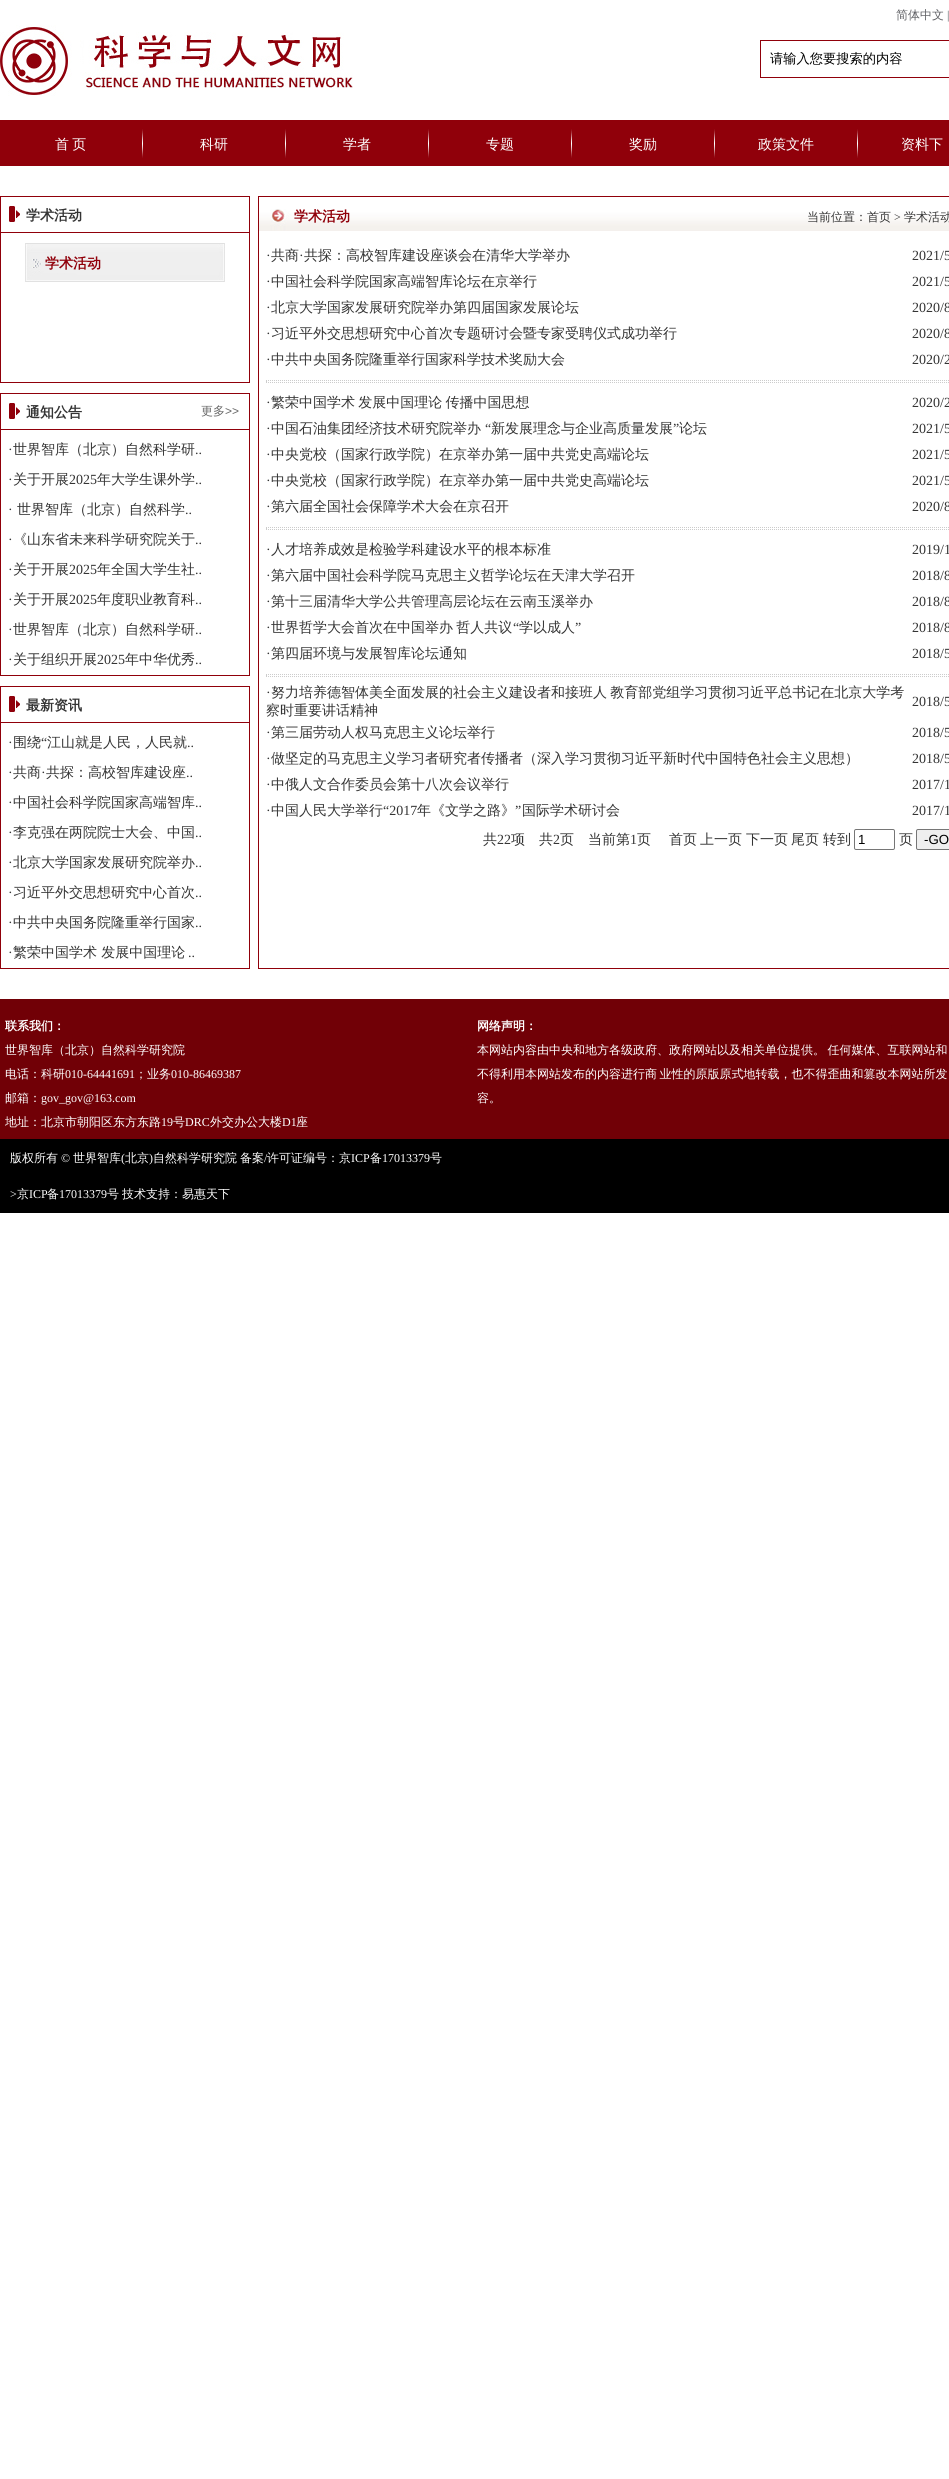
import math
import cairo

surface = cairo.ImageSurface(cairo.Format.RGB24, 949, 2479)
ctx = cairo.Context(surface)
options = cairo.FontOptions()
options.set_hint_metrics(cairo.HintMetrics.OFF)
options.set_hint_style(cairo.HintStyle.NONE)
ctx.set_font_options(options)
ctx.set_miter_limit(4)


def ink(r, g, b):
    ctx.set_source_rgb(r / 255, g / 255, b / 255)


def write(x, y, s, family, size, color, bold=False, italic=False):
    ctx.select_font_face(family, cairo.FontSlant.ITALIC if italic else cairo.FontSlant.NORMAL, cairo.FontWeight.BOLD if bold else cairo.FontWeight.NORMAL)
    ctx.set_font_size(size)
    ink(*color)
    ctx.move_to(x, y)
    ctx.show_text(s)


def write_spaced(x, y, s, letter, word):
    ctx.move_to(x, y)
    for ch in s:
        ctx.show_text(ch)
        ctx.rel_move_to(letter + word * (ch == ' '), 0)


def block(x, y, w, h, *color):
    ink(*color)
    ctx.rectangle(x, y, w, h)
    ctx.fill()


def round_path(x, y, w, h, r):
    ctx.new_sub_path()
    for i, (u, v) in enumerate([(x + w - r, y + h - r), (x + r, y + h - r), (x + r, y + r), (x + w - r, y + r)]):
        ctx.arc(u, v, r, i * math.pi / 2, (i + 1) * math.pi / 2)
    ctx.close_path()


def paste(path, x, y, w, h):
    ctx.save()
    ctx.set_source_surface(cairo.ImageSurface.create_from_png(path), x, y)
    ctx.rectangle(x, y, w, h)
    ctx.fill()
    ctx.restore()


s1 = dict(family="WenQuanYi Zen Hei Medium", size=12, color=(96, 97, 101))
s2 = dict(family="Liberation Serif", size=12, color=(96, 97, 101))
s3 = dict(family="WenQuanYi Zen Hei Medium", size=13.25, color=(0, 0, 0))
s4 = dict(family="WenQuanYi Zen Hei Medium", size=14, color=(255, 255, 255))
s5 = dict(family="WenQuanYi Zen Hei", size=14, color=(52, 52, 52), bold=True)
s6 = dict(family="WenQuanYi Zen Hei", size=14, color=(144, 0, 10), bold=True)
s7 = dict(family="WenQuanYi Zen Hei Medium", size=12, color=(103, 103, 103))
s8 = dict(family="Liberation Sans", size=12, color=(103, 103, 103))
s9 = dict(family="Liberation Serif", size=14, color=(52, 52, 52))
s10 = dict(family="WenQuanYi Zen Hei Medium", size=14, color=(52, 52, 52))
s11 = dict(family="WenQuanYi Zen Hei Medium", size=12, color=(52, 52, 52))
s12 = dict(family="Liberation Serif", size=12, color=(52, 52, 52))
s13 = dict(family="Liberation Sans", size=13.25, color=(0, 0, 0))
s14 = dict(family="WenQuanYi Zen Hei", size=12, color=(255, 255, 255), bold=True)
s15 = dict(family="WenQuanYi Zen Hei Medium", size=12, color=(255, 255, 255))
s16 = dict(family="Liberation Serif", size=12, color=(255, 255, 255))

ink(255, 255, 255)
ctx.paint()
write(896, 19, "简体中文", **s1)
write(947, 19, "|", **s2)
paste("pic1.png", 0, 25, 353, 71)
ctx.rectangle(760.5, 40.5, 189, 37)
ink(144, 0, 10)
ctx.set_line_width(1)
ctx.stroke()
write(770, 63, "请输入您要搜索的内容", **s3)
block(0, 120, 949, 46, 144, 0, 10)
ctx.set_font_size(14)
ink(255, 255, 255)
write_spaced(55, 149, "首 页", 0, -1)
paste("pic2.png", 142, 129, 1, 29)
write(200, 149, "科研", **s4)
paste("pic2.png", 285, 129, 1, 29)
write(343, 149, "学者", **s4)
paste("pic2.png", 428, 129, 1, 29)
write(486, 149, "专题", **s4)
paste("pic2.png", 571, 129, 1, 29)
write(629, 149, "奖励", **s4)
paste("pic2.png", 714, 129, 1, 29)
write(758, 149, "政策文件", **s4)
paste("pic2.png", 857, 129, 1, 29)
write(901, 149, "资料下", **s4)
ctx.rectangle(0.5, 196.5, 249, 186)
ink(144, 0, 10)
ctx.stroke()
paste("pic3.png", 9, 206, 11, 16)
write(26, 220, "学术活动", **s5)
block(1, 232, 248, 1, 144, 0, 10)
paste("pic4.png", 25, 243, 200, 39)
write(45, 268, "学术活动", **s6)
ctx.rectangle(0.5, 393.5, 249, 282)
ctx.stroke()
paste("pic3.png", 9, 403, 11, 16)
write(26, 417, "通知公告", **s5)
write(201, 415, "更多", **s7)
write(225, 415, ">>", **s8)
block(1, 429, 248, 1, 144, 0, 10)
write(8, 454, "·", **s9)
write(13, 454, "世界智库（北京）自然科学研", **s10)
write(195, 454, "..", **s9)
write(8, 484, "·", **s9)
write(13, 484, "关于开展", **s10)
write(69, 484, "2025", **s9)
write(97, 484, "年大学生课外学", **s10)
write(195, 484, "..", **s9)
write(8, 514, "·", **s9)
write(17, 514, "世界智库（北京）自然科学", **s10)
write(185, 514, "..", **s9)
write(8, 544, "·", **s9)
write(13, 544, "《山东省未来科学研究院关于", **s10)
write(195, 544, "..", **s9)
write(8, 574, "·", **s9)
write(13, 574, "关于开展", **s10)
write(69, 574, "2025", **s9)
write(97, 574, "年全国大学生社", **s10)
write(195, 574, "..", **s9)
write(8, 604, "·", **s9)
write(13, 604, "关于开展", **s10)
write(69, 604, "2025", **s9)
write(97, 604, "年度职业教育科", **s10)
write(195, 604, "..", **s9)
write(8, 634, "·", **s9)
write(13, 634, "世界智库（北京）自然科学研", **s10)
write(195, 634, "..", **s9)
write(8, 664, "·", **s9)
write(13, 664, "关于组织开展", **s10)
write(97, 664, "2025", **s9)
write(125, 664, "年中华优秀", **s10)
write(195, 664, "..", **s9)
ctx.rectangle(0.5, 686.5, 249, 282)
ink(144, 0, 10)
ctx.stroke()
paste("pic3.png", 9, 696, 11, 16)
write(26, 710, "最新资讯", **s5)
block(1, 722, 248, 1, 144, 0, 10)
write(13, 747, "围绕", **s10)
write(41, 747, "“", **s9)
write(47, 747, "江山就是人民，人民就", **s10)
write(8, 747, "·", **s9)
write(187, 747, "..", **s9)
write(8, 777, "·", **s9)
write(13, 777, "共商", **s10)
write(41, 777, "·", **s9)
write(46, 777, "共探：高校智库建设座", **s10)
write(186, 777, "..", **s9)
write(8, 807, "·", **s9)
write(13, 807, "中国社会科学院国家高端智库", **s10)
write(195, 807, "..", **s9)
write(8, 837, "·", **s9)
write(13, 837, "李克强在两院院士大会、中国", **s10)
write(195, 837, "..", **s9)
write(8, 867, "·", **s9)
write(13, 867, "北京大学国家发展研究院举办", **s10)
write(195, 867, "..", **s9)
write(8, 897, "·", **s9)
write(13, 897, "习近平外交思想研究中心首次", **s10)
write(195, 897, "..", **s9)
write(8, 927, "·", **s9)
write(13, 927, "中共中央国务院隆重举行国家", **s10)
write(195, 927, "..", **s9)
write(8, 957, "·", **s9)
write(13, 957, "繁荣中国学术 发展中国理论", **s10)
write(188, 957, "..", **s9)
ctx.rectangle(258.5, 196.5, 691, 772)
ink(144, 0, 10)
ctx.stroke()
paste("pic5.png", 259, 209, 690, 22)
write(294, 221, "学术活动", **s6)
write(807, 221, "当前位置：首页", **s11)
write(894, 221, ">", **s12)
write(904, 221, "学术活动", **s11)
write(266, 260, "·", **s9)
write(271, 260, "共商", **s10)
write(299, 260, "·", **s9)
write(304, 260, "共探：高校智库建设座谈会在清华大学举办", **s10)
write(912, 260, "2021/5", **s9)
write(266, 286, "·", **s9)
write(271, 286, "中国社会科学院国家高端智库论坛在京举行", **s10)
write(912, 286, "2021/5", **s9)
write(266, 312, "·", **s9)
write(271, 312, "北京大学国家发展研究院举办第四届国家发展论坛", **s10)
write(912, 312, "2020/8", **s9)
write(266, 338, "·", **s9)
write(271, 338, "习近平外交思想研究中心首次专题研讨会暨专家受聘仪式成功举行", **s10)
write(912, 338, "2020/8", **s9)
write(266, 364, "·", **s9)
write(271, 364, "中共中央国务院隆重举行国家科学技术奖励大会", **s10)
write(912, 364, "2020/2", **s9)
ctx.new_path()
ctx.move_to(266, 380.5)
ctx.line_to(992, 380.5)
ink(204, 204, 204)
ctx.set_dash([1, 1])
ctx.stroke()
ctx.new_path()
ctx.move_to(266, 382.5)
ctx.line_to(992, 382.5)
ctx.stroke()
block(266, 380, 1, 3, 204, 204, 204)
write(266, 407, "·", **s9)
ctx.select_font_face("WenQuanYi Zen Hei Medium")
write_spaced(271, 407, "繁荣中国学术 发展中国理论 传播中国思想", 0, -1)
write(912, 407, "2020/2", **s9)
write(271, 433, "中国石油集团经济技术研究院举办", **s10)
write(485, 433, "“", **s9)
write(491, 433, "新发展理念与企业高质量发展", **s10)
write(673, 433, "”", **s9)
write(679, 433, "论坛", **s10)
write(266, 433, "·", **s9)
write(912, 433, "2021/5", **s9)
write(266, 459, "·", **s9)
write(271, 459, "中央党校（国家行政学院）在京举办第一届中共党史高端论坛", **s10)
write(912, 459, "2021/5", **s9)
write(266, 485, "·", **s9)
write(271, 485, "中央党校（国家行政学院）在京举办第一届中共党史高端论坛", **s10)
write(912, 485, "2021/5", **s9)
write(266, 511, "·", **s9)
write(271, 511, "第六届全国社会保障学术大会在京召开", **s10)
write(912, 511, "2020/8", **s9)
ctx.new_path()
ctx.move_to(266, 527.5)
ctx.line_to(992, 527.5)
ink(204, 204, 204)
ctx.stroke()
ctx.new_path()
ctx.move_to(266, 529.5)
ctx.line_to(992, 529.5)
ctx.stroke()
block(266, 527, 1, 3, 204, 204, 204)
write(266, 554, "·", **s9)
write(271, 554, "人才培养成效是检验学科建设水平的根本标准", **s10)
write(912, 554, "2019/1", **s9)
write(266, 580, "·", **s9)
write(271, 580, "第六届中国社会科学院马克思主义哲学论坛在天津大学召开", **s10)
write(912, 580, "2018/8", **s9)
write(266, 606, "·", **s9)
write(271, 606, "第十三届清华大学公共管理高层论坛在云南玉溪举办", **s10)
write(912, 606, "2018/8", **s9)
ctx.select_font_face("WenQuanYi Zen Hei Medium")
write_spaced(271, 632, "世界哲学大会首次在中国举办 哲人共议", 0, -1)
write(513, 632, "“", **s9)
write(519, 632, "学以成人", **s10)
write(575, 632, "”", **s9)
write(266, 632, "·", **s9)
write(912, 632, "2018/8", **s9)
write(266, 658, "·", **s9)
write(271, 658, "第四届环境与发展智库论坛通知", **s10)
write(912, 658, "2018/5", **s9)
ctx.new_path()
ctx.move_to(266, 674.5)
ctx.line_to(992, 674.5)
ink(204, 204, 204)
ctx.stroke()
ctx.new_path()
ctx.move_to(266, 676.5)
ctx.line_to(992, 676.5)
ctx.stroke()
block(266, 674, 1, 3, 204, 204, 204)
write(266, 697, "·", **s9)
ctx.select_font_face("WenQuanYi Zen Hei Medium")
write_spaced(271, 697, "努力培养德智体美全面发展的社会主义建设者和接班人 教育部党组学习贯彻习近平总书记在北京大学考", 0, -1)
write(266, 715, "察时重要讲话精神", **s10)
write(912, 706, "2018/5", **s9)
write(266, 737, "·", **s9)
write(271, 737, "第三届劳动人权马克思主义论坛举行", **s10)
write(912, 737, "2018/5", **s9)
write(266, 763, "·", **s9)
write(271, 763, "做坚定的马克思主义学习者研究者传播者（深入学习贯彻习近平新时代中国特色社会主义思想）", **s10)
write(912, 763, "2018/5", **s9)
write(266, 789, "·", **s9)
write(271, 789, "中俄人文合作委员会第十八次会议举行", **s10)
write(912, 789, "2017/1", **s9)
write(271, 815, "中国人民大学举行", **s10)
write(383, 815, "“2017", **s9)
write(417, 815, "年《文学之路》", **s10)
write(515, 815, "”", **s9)
write(522, 815, "国际学术研讨会", **s10)
write(266, 815, "·", **s9)
write(912, 815, "2017/1", **s9)
write(483, 844, "共", **s10)
write(497, 844, "22", **s9)
write(511, 844, "项　共", **s10)
write(553, 844, "2", **s9)
write(560, 844, "页　当前第", **s10)
write(630, 844, "1", **s9)
write(637, 844, "页", **s10)
write(669, 844, "首页", **s10)
write(700, 844, "上一页", **s10)
write(746, 844, "下一页", **s10)
write(791, 844, "尾页", **s10)
write(823, 844, "转到", **s10)
round_path(854.5, 829.5, 40, 20, 1.5)
ink(118, 118, 118)
ctx.set_dash([])
ctx.stroke()
write(858, 844, "1", **s13)
write(899, 844, "页", **s10)
ink(239, 239, 239)
round_path(916.5, 829.5, 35, 20, 1.5)
ctx.fill_preserve()
ink(118, 118, 118)
ctx.stroke()
write(924, 844, "-GO", **s13)
block(0, 999, 949, 140, 113, 0, 6)
write(5, 1030, "联系我们：", **s14)
write(5, 1054, "世界智库（北京）自然科学研究院", **s15)
write(5, 1078, "电话：科研", **s15)
write(65, 1078, "010-64441691", **s16)
write(135, 1078, "；业务", **s15)
write(171, 1078, "010-86469387", **s16)
write(5, 1102, "邮箱：", **s15)
write(41, 1102, "gov_gov@163.com", **s16)
write(5, 1126, "地址：北京市朝阳区东方东路", **s15)
write(161, 1126, "19", **s16)
write(173, 1126, "号", **s15)
write(185, 1126, "DRC", **s16)
write(210, 1126, "外交办公大楼", **s15)
write(282, 1126, "D1", **s16)
write(296, 1126, "座", **s15)
write(477, 1030, "网络声明：", **s14)
ctx.select_font_face("WenQuanYi Zen Hei Medium")
write_spaced(477, 1054, "本网站内容由中央和地方各级政府、政府网站以及相关单位提供。 任何媒体、互联网站和", 0, -1)
write_spaced(477, 1078, "不得利用本网站发布的内容进行商 业性的原版原式地转载，也不得歪曲和篡改本网站所发", 0, -1)
write(477, 1102, "容。", **s15)
block(0, 1139, 949, 74, 0, 0, 0)
write(10, 1162, "版权所有", **s15)
write(61, 1162, "©", **s16)
write(73, 1162, "世界智库", **s15)
write(121, 1162, "(", **s16)
write(125, 1162, "北京", **s15)
write(149, 1162, ")", **s16)
write(153, 1162, "自然科学研究院", **s15)
write(240, 1162, "备案", **s15)
write(264, 1162, "/", **s16)
write(267, 1162, "许可证编号：京", **s15)
write(351, 1162, "ICP", **s16)
write(370, 1162, "备", **s15)
write(382, 1162, "17013379", **s16)
write(430, 1162, "号", **s15)
write(10, 1198, ">", **s16)
write(17, 1198, "京", **s15)
write(29, 1198, "ICP", **s16)
write(47, 1198, "备", **s15)
write(59, 1198, "17013379", **s16)
write(107, 1198, "号", **s15)
write(122, 1198, "技术支持：易惠天下", **s15)
surface.write_to_png("screenshot.png")
